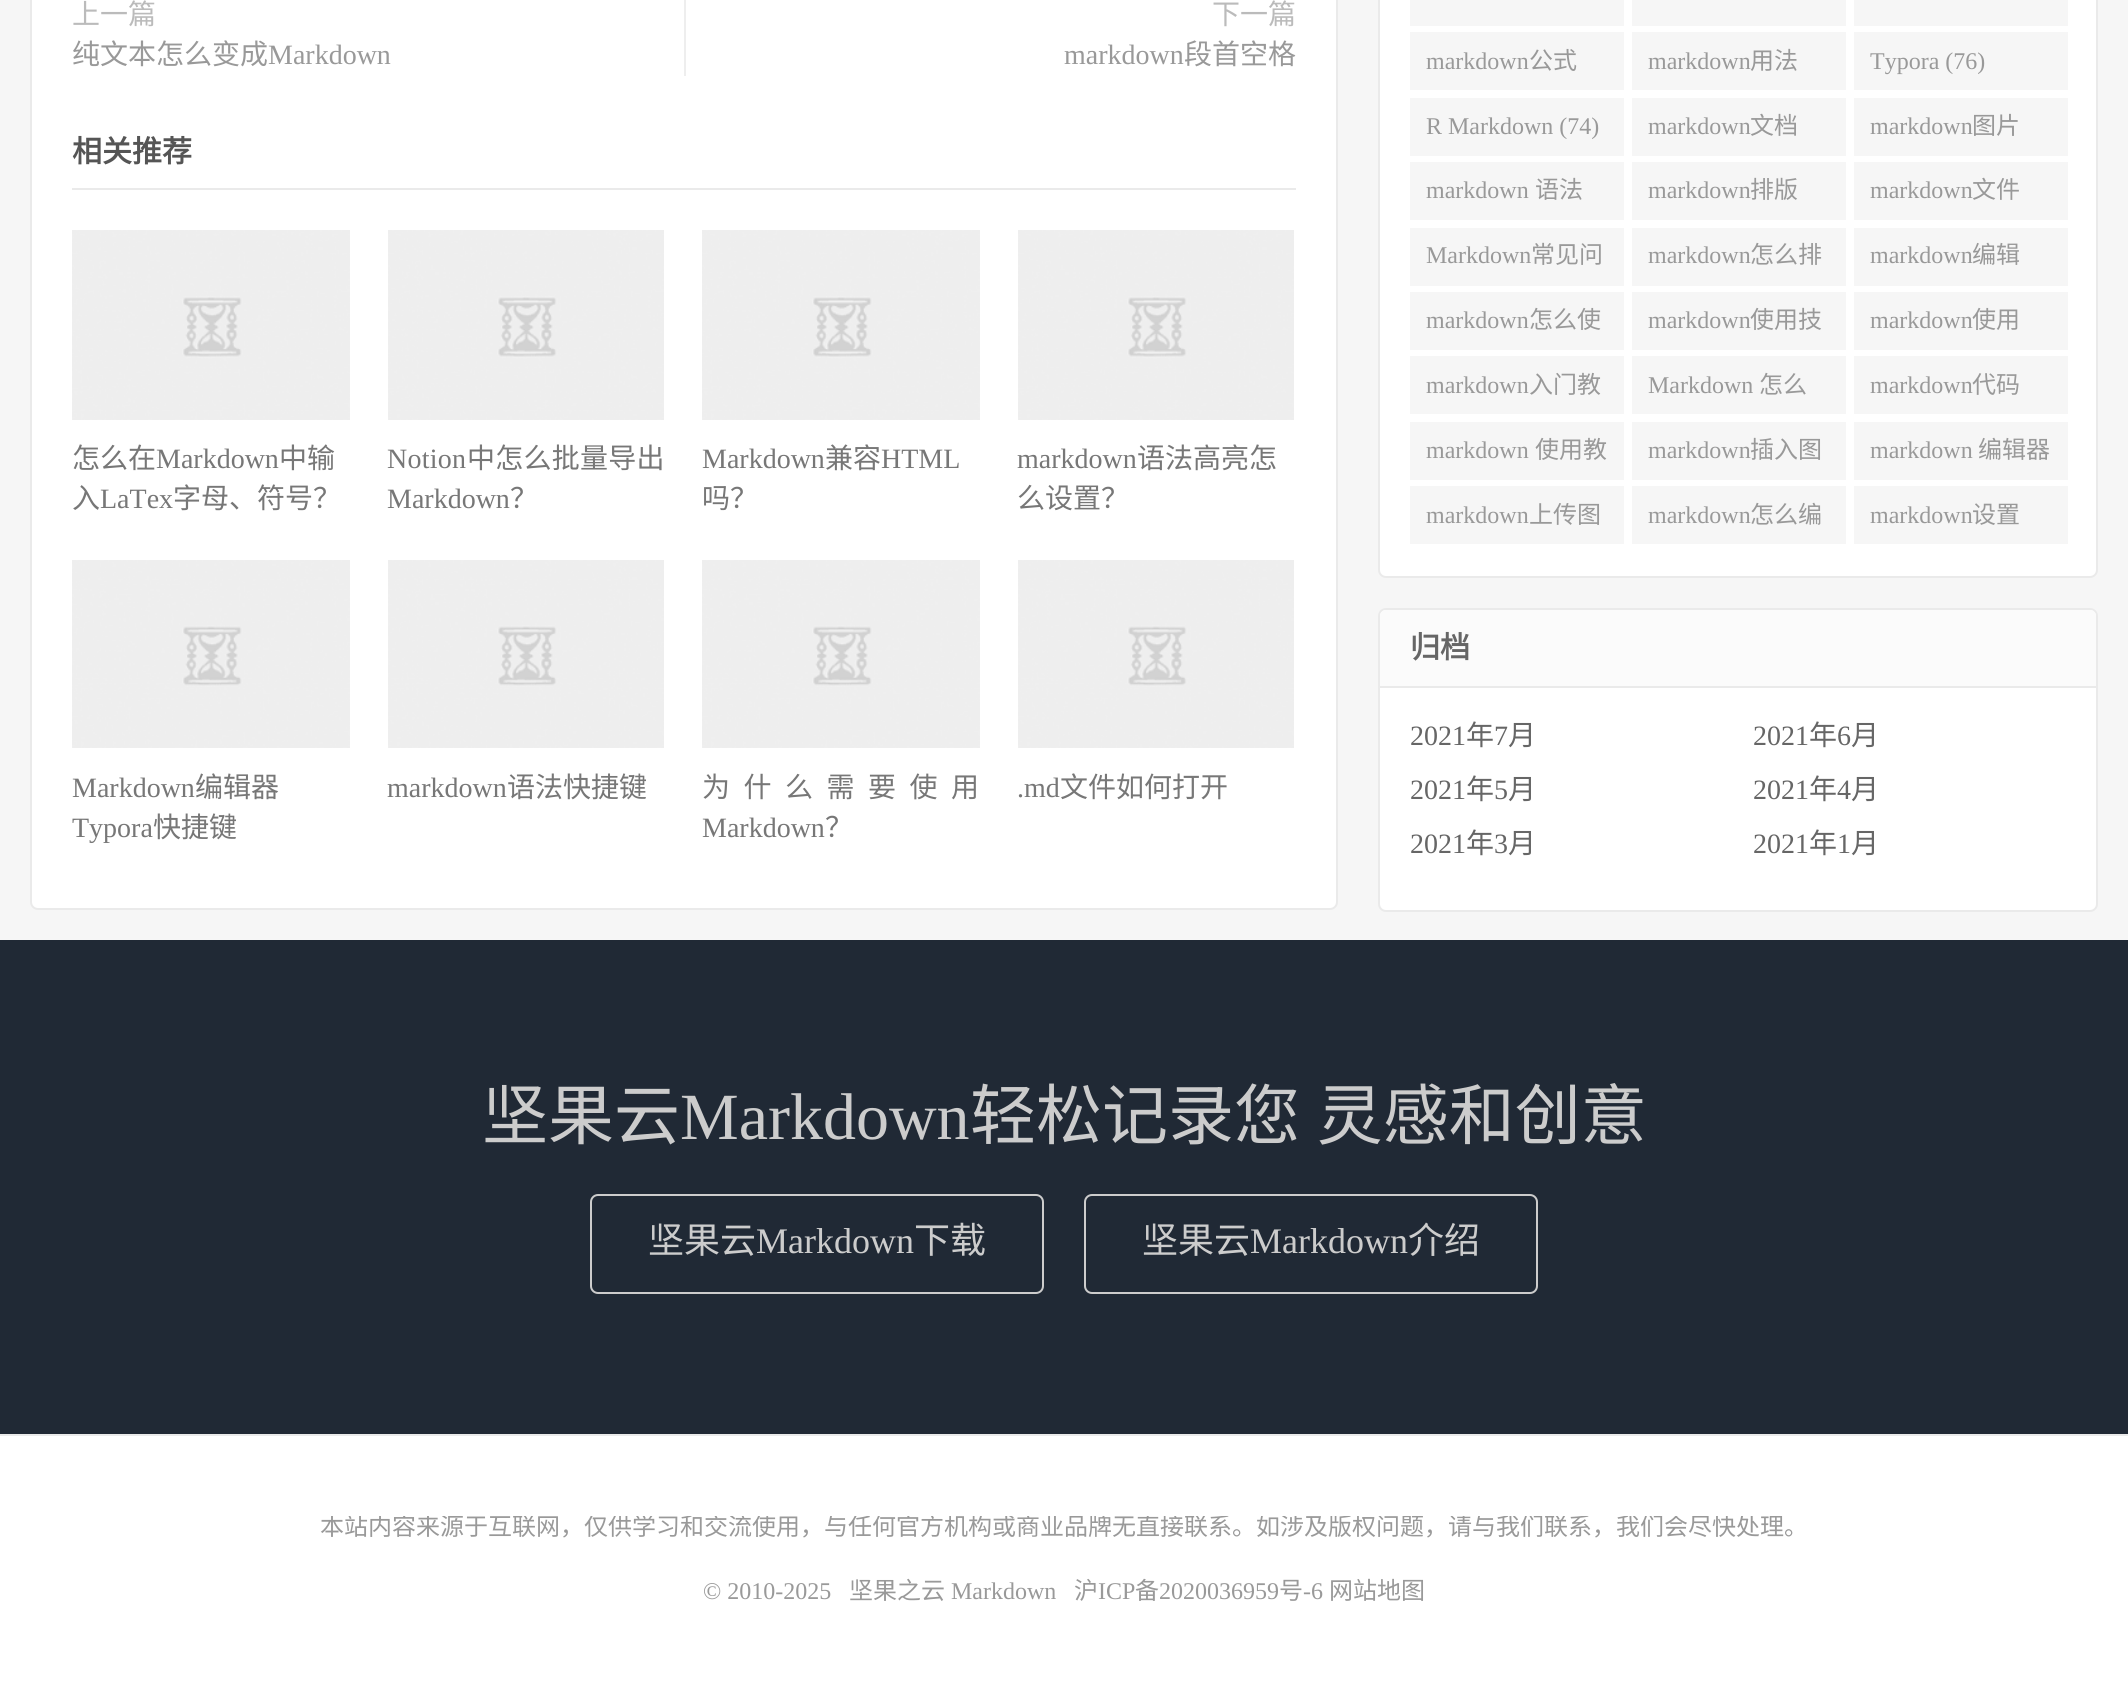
import math
import cairo

surface = cairo.ImageSurface(cairo.Format.RGB24, 2128, 1704)
ctx = cairo.Context(surface)
options = cairo.FontOptions()
options.set_hint_metrics(cairo.HintMetrics.OFF)
options.set_hint_style(cairo.HintStyle.NONE)
ctx.set_font_options(options)
ctx.set_miter_limit(4)


def ink(r, g, b):
    ctx.set_source_rgb(r / 255, g / 255, b / 255)


def write(x, y, s, family, size, color, bold=False, italic=False):
    ctx.select_font_face(family, cairo.FontSlant.ITALIC if italic else cairo.FontSlant.NORMAL, cairo.FontWeight.BOLD if bold else cairo.FontWeight.NORMAL)
    ctx.set_font_size(size)
    ink(*color)
    ctx.move_to(x, y)
    ctx.show_text(s)


def write_spaced(x, y, s, letter, word):
    ctx.move_to(x, y)
    for ch in s:
        ctx.show_text(ch)
        ctx.rel_move_to(letter + word * (ch == ' '), 0)


def block(x, y, w, h, *color):
    ink(*color)
    ctx.rectangle(x, y, w, h)
    ctx.fill()


def round_path(x, y, w, h, r):
    ctx.new_sub_path()
    for i, (u, v) in enumerate([(x + w - r, y + h - r), (x + r, y + h - r), (x + r, y + r), (x + w - r, y + r)]):
        ctx.arc(u, v, r, i * math.pi / 2, (i + 1) * math.pi / 2)
    ctx.close_path()


def paste(path, x, y, w, h):
    ctx.save()
    ctx.set_source_surface(cairo.ImageSurface.create_from_png(path), x, y)
    ctx.rectangle(x, y, w, h)
    ctx.fill()
    ctx.restore()


s1 = dict(family="Noto Sans CJK SC", size=28, color=(187, 187, 187))
s2 = dict(family="Noto Sans CJK SC", size=28, color=(153, 153, 153))
s3 = dict(family="Liberation Serif", size=28, color=(153, 153, 153))
s4 = dict(family="Noto Sans CJK SC", size=30, color=(85, 85, 85), bold=True)
s5 = dict(family="Noto Sans CJK SC", size=28, color=(119, 119, 119))
s6 = dict(family="Liberation Serif", size=28, color=(119, 119, 119))
s7 = dict(family="Liberation Serif", size=24, color=(153, 153, 153))
s8 = dict(family="Noto Sans CJK SC", size=24, color=(153, 153, 153))
s9 = dict(family="Noto Sans CJK SC", size=30, color=(102, 102, 102), bold=True)
s10 = dict(family="Liberation Serif", size=28, color=(102, 102, 102))
s11 = dict(family="Noto Sans CJK SC", size=28, color=(102, 102, 102))
s12 = dict(family="Noto Sans CJK SC", size=66, color=(204, 204, 204))
s13 = dict(family="Liberation Serif", size=66, color=(204, 204, 204))
s14 = dict(family="Noto Sans CJK SC", size=36, color=(204, 204, 204))
s15 = dict(family="Liberation Serif", size=36, color=(204, 204, 204))

ink(246, 246, 246)
ctx.paint()
ink(255, 255, 255)
round_path(31, -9, 1306, 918, 7)
ctx.fill_preserve()
ink(234, 234, 234)
ctx.stroke()
write(72, 24, "上一篇", **s1)
write(72, 64, "纯文本怎么变成", **s2)
write(268, 64, "Markdown", **s3)
block(684, 0, 2, 76, 238, 238, 238)
write(1212, 24, "下一篇", **s1)
write(1064, 64, "markdown", **s3)
write(1184, 64, "段首空格", **s2)
block(72, 188, 1224, 2, 234, 234, 234)
write(72, 162, "相关推荐", **s4)
paste("pic1.png", 72, 230, 278, 190)
write(72, 468, "怎么在", **s5)
write(156, 468, "Markdown", **s6)
write(279, 468, "中输", **s5)
write(72, 508, "入", **s5)
write(100, 508, "LaTex", **s6)
write(173, 508, "字母、符号？", **s5)
paste("pic2.png", 388, 230, 276, 190)
ctx.select_font_face("Liberation Serif")
write_spaced(387, 468, "Notion", 0.25, 0)
ctx.select_font_face("Noto Sans CJK SC")
write_spaced(467, 468, "中怎么批量导出", 0.25, 0)
write(387, 508, "Markdown", **s6)
write(510, 508, "？", **s5)
paste("pic1.png", 702, 230, 278, 190)
write(702, 468, "Markdown", **s6)
write(825, 468, "兼容", **s5)
write(881, 468, "HTML", **s6)
write(702, 508, "吗？", **s5)
paste("pic3.png", 1018, 230, 276, 190)
write(1017, 468, "markdown", **s6)
write(1137, 468, "语法高亮怎", **s5)
write(1017, 508, "么设置？", **s5)
paste("pic4.png", 72, 560, 278, 188)
write(72, 797, "Markdown", **s6)
write(195, 797, "编辑器", **s5)
write(72, 837, "Typora", **s6)
write(153, 837, "快捷键", **s5)
paste("pic5.png", 388, 560, 276, 188)
write(387, 797, "markdown", **s6)
write(507, 797, "语法快捷键", **s5)
paste("pic4.png", 702, 560, 278, 188)
write_spaced(702, 797, "为什么需要使用", 13.5, 0)
write(702, 837, "Markdown", **s6)
write(825, 837, "？", **s5)
paste("pic6.png", 1018, 560, 276, 188)
write(1017, 797, ".md", **s6)
write(1060, 797, "文件如何打开", **s5)
ink(255, 255, 255)
round_path(1379, -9, 718, 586, 7)
ctx.fill_preserve()
ink(234, 234, 234)
ctx.stroke()
block(1410, 0, 214, 26, 246, 246, 246)
block(1632, 0, 214, 26, 246, 246, 246)
block(1854, 0, 214, 26, 246, 246, 246)
block(1410, 32, 214, 58, 246, 246, 246)
write(1426, 69, "markdown", **s7)
write(1529, 69, "公式", **s8)
block(1632, 32, 214, 58, 246, 246, 246)
write(1648, 69, "markdown", **s7)
write(1750, 69, "用法", **s8)
block(1854, 32, 214, 58, 246, 246, 246)
write(1870, 69, "Typora (76)", **s7)
block(1410, 98, 214, 58, 246, 246, 246)
write(1426, 134, "R Markdown (74)", **s7)
block(1632, 98, 214, 58, 246, 246, 246)
write(1648, 134, "markdown", **s7)
write(1750, 134, "文档", **s8)
block(1854, 98, 214, 58, 246, 246, 246)
write(1870, 134, "markdown", **s7)
write(1972, 134, "图片", **s8)
block(1410, 162, 214, 58, 246, 246, 246)
write(1426, 198, "markdown", **s7)
write(1535, 198, "语法", **s8)
block(1632, 162, 214, 58, 246, 246, 246)
write(1648, 198, "markdown", **s7)
write(1750, 198, "排版", **s8)
block(1854, 162, 214, 58, 246, 246, 246)
write(1870, 198, "markdown", **s7)
write(1972, 198, "文件", **s8)
block(1410, 228, 214, 58, 246, 246, 246)
write(1426, 263, "Markdown", **s7)
write(1531, 263, "常见问", **s8)
block(1632, 228, 214, 58, 246, 246, 246)
write(1648, 263, "markdown", **s7)
write(1750, 263, "怎么排", **s8)
block(1854, 228, 214, 58, 246, 246, 246)
write(1870, 263, "markdown", **s7)
write(1972, 263, "编辑", **s8)
block(1410, 292, 214, 58, 246, 246, 246)
write(1426, 328, "markdown", **s7)
write(1529, 328, "怎么使", **s8)
block(1632, 292, 214, 58, 246, 246, 246)
write(1648, 328, "markdown", **s7)
write(1750, 328, "使用技", **s8)
block(1854, 292, 214, 58, 246, 246, 246)
write(1870, 328, "markdown", **s7)
write(1972, 328, "使用", **s8)
block(1410, 356, 214, 58, 246, 246, 246)
write(1426, 393, "markdown", **s7)
write(1529, 393, "入门教", **s8)
block(1632, 356, 214, 58, 246, 246, 246)
write(1648, 393, "Markdown", **s7)
write(1759, 393, "怎么", **s8)
block(1854, 356, 214, 58, 246, 246, 246)
write(1870, 393, "markdown", **s7)
write(1972, 393, "代码", **s8)
block(1410, 422, 214, 58, 246, 246, 246)
write(1426, 458, "markdown", **s7)
write(1535, 458, "使用教", **s8)
block(1632, 422, 214, 58, 246, 246, 246)
write(1648, 458, "markdown", **s7)
write(1750, 458, "插入图", **s8)
block(1854, 422, 214, 58, 246, 246, 246)
write(1870, 458, "markdown", **s7)
write(1978, 458, "编辑器", **s8)
block(1410, 486, 214, 58, 246, 246, 246)
write(1426, 523, "markdown", **s7)
write(1529, 523, "上传图", **s8)
block(1632, 486, 214, 58, 246, 246, 246)
write(1648, 523, "markdown", **s7)
write(1750, 523, "怎么编", **s8)
block(1854, 486, 214, 58, 246, 246, 246)
write(1870, 523, "markdown", **s7)
write(1972, 523, "设置", **s8)
ink(255, 255, 255)
round_path(1379, 609, 718, 302, 7)
ctx.fill_preserve()
ink(234, 234, 234)
ctx.stroke()
ink(251, 251, 251)
ctx.new_path()
ctx.move_to(1386, 610)
ctx.line_to(2090, 610)
ctx.curve_to(2093.5, 610, 2096, 612.5, 2096, 616)
ctx.line_to(2096, 688)
ctx.line_to(1380, 688)
ctx.line_to(1380, 616)
ctx.curve_to(1380, 612.5, 1382.5, 610, 1386, 610)
ctx.close_path()
ctx.fill()
block(1380, 686, 716, 2, 234, 234, 234)
write(1410, 658, "归档", **s9)
write(1410, 745, "2021", **s10)
write(1466, 745, "年", **s11)
write(1494, 745, "7", **s10)
write(1508, 745, "月", **s11)
write(1753, 745, "2021", **s10)
write(1809, 745, "年", **s11)
write(1837, 745, "6", **s10)
write(1851, 745, "月", **s11)
write(1410, 799, "2021", **s10)
write(1466, 799, "年", **s11)
write(1494, 799, "5", **s10)
write(1508, 799, "月", **s11)
write(1753, 799, "2021", **s10)
write(1809, 799, "年", **s11)
write(1837, 799, "4", **s10)
write(1851, 799, "月", **s11)
write(1410, 853, "2021", **s10)
write(1466, 853, "年", **s11)
write(1494, 853, "3", **s10)
write(1508, 853, "月", **s11)
write(1753, 853, "2021", **s10)
write(1809, 853, "年", **s11)
write(1837, 853, "1", **s10)
write(1851, 853, "月", **s11)
block(0, 940, 2128, 494, 32, 41, 53)
write(482, 1139, "坚果云", **s12)
write(680, 1139, "Markdown", **s13)
ctx.select_font_face("Noto Sans CJK SC")
write_spaced(970, 1139, "轻松记录您 灵感和创意", 0, 2)
round_path(591, 1195, 452, 98, 7)
ctx.stroke()
write(648, 1253, "坚果云", **s14)
write(756, 1253, "Markdown", **s15)
write(914, 1253, "下载", **s14)
round_path(1085, 1195, 452, 98, 7)
ctx.stroke()
write(1142, 1253, "坚果云", **s14)
write(1250, 1253, "Markdown", **s15)
write(1408, 1253, "介绍", **s14)
block(0, 1436, 2128, 268, 255, 255, 255)
block(0, 1434, 2128, 2, 234, 234, 234)
ctx.save()
ctx.rectangle(90, 1516, 1948, 24)
ctx.clip()
write(320, 1535, "本站内容来源于互联网，仅供学习和交流使用，与任何官方机构或商业品牌无直接联系。如涉及版权问题，请与我们联系，我们会尽快处理。", **s8)
ctx.restore()
write(703, 1599, "© 2010-2025", **s7)
write(849, 1599, "坚果之云", **s8)
write(951, 1599, "Markdown", **s7)
write(1074, 1599, "沪", **s8)
write(1098, 1599, "ICP", **s7)
write(1135, 1599, "备", **s8)
write(1159, 1599, "2020036959", **s7)
write(1279, 1599, "号", **s8)
write(1303, 1599, "-6", **s7)
write(1329, 1599, "网站地图", **s8)
surface.write_to_png("screenshot.png")
